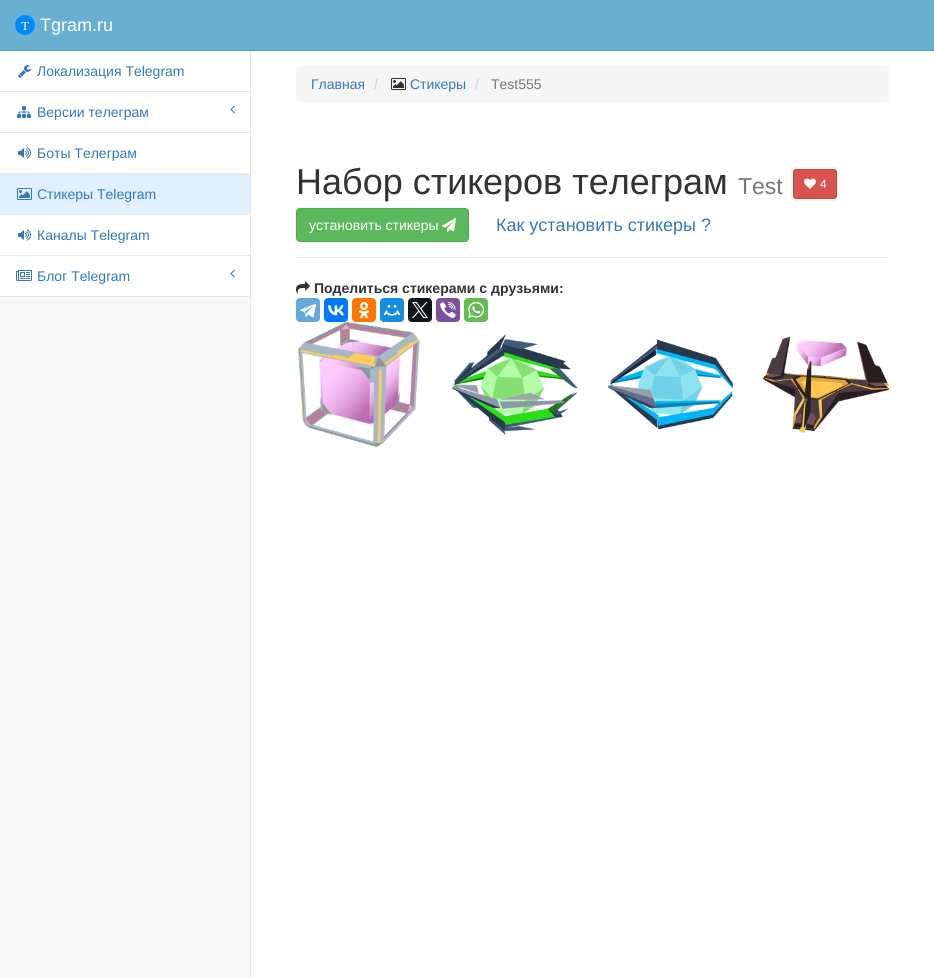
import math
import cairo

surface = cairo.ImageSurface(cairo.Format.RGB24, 934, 978)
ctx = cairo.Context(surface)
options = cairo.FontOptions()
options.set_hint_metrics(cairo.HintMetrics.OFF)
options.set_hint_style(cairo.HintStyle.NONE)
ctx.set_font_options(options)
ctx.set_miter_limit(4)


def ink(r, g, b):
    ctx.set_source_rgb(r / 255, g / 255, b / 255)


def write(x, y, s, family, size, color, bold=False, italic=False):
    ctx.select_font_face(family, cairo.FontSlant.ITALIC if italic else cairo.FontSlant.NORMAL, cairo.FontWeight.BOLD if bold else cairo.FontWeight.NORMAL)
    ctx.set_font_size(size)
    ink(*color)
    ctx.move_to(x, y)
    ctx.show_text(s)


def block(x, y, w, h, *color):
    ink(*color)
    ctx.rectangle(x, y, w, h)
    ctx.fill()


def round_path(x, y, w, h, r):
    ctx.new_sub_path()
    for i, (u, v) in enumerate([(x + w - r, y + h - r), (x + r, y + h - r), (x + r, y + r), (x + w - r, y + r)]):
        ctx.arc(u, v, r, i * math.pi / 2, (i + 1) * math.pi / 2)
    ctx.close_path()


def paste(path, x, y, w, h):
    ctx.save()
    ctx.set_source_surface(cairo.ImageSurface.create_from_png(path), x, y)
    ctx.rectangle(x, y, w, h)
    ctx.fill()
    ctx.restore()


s1 = dict(family="Liberation Sans", size=18, color=(255, 255, 255))
s2 = dict(family="Liberation Sans", size=14, color=(51, 122, 183))
s3 = dict(family="Liberation Sans", size=14, color=(204, 204, 204))
s4 = dict(family="Liberation Sans", size=14, color=(119, 119, 119))
s5 = dict(family="Liberation Sans", size=36, color=(51, 51, 51))
s6 = dict(family="Liberation Sans", size=23, color=(119, 119, 119))
s7 = dict(family="Liberation Sans", size=12, color=(255, 255, 255))
s8 = dict(family="Liberation Sans", size=14, color=(255, 255, 255))
s9 = dict(family="Liberation Sans", size=18, color=(51, 122, 183))
s10 = dict(family="Liberation Sans", size=14, color=(51, 51, 51), bold=True)

ink(248, 248, 248)
ctx.paint()
block(0, 0, 934, 50, 103, 176, 209)
block(0, 50, 934, 1, 57, 159, 214)
paste("pic1.png", 15, 15, 20, 20)
write(40, 31, "Tgram.ru", **s1)
block(0, 51, 250, 245, 255, 255, 255)
block(0, 91, 250, 1, 231, 231, 231)
paste("pic2.png", 18, 65, 13, 13)
write(37, 76, "Локализация Telegram", **s2)
block(0, 132, 250, 1, 231, 231, 231)
paste("pic3.png", 17, 106, 14, 12)
write(37, 117, "Версии телеграм", **s2)
paste("pic4.png", 230, 105, 5, 9)
block(0, 173, 250, 1, 231, 231, 231)
paste("pic5.png", 18, 147, 13, 12)
write(37, 158, "Боты Телеграм", **s2)
block(0, 214, 250, 1, 231, 231, 231)
block(0, 174, 250, 40, 224, 240, 255)
paste("pic6.png", 17, 188, 15, 12)
write(37, 199, "Стикеры Telegram", **s2)
block(0, 255, 250, 1, 231, 231, 231)
paste("pic5.png", 18, 229, 13, 12)
write(37, 240, "Каналы Telegram", **s2)
block(0, 296, 250, 1, 231, 231, 231)
paste("pic7.png", 16, 270, 16, 11)
write(37, 281, "Блог Telegram", **s2)
paste("pic4.png", 230, 269, 5, 9)
block(251, 51, 683, 927, 255, 255, 255)
block(250, 51, 1, 927, 231, 231, 231)
ink(245, 245, 245)
round_path(296, 66, 593, 36, 4)
ctx.fill()
write(311, 89, "Главная", **s2)
write(374, 89, "/", **s3)
paste("pic8.png", 391, 78, 15, 12)
write(410, 89, "Стикеры", **s2)
write(475, 89, "/", **s3)
write(491, 89, "Test555", **s4)
block(296, 257, 593, 1, 238, 238, 238)
write(296, 194, "Набор стикеров телеграм", **s5)
write(738, 194, "Test", **s6)
ink(217, 83, 79)
round_path(793.5, 169.5, 43, 29, 2.5)
ctx.fill_preserve()
ink(212, 63, 58)
ctx.set_line_width(1)
ctx.stroke()
paste("pic9.png", 804, 178, 12, 11)
write(820, 188, "4", **s7)
ink(92, 184, 92)
round_path(296.5, 208.5, 172, 33, 3.5)
ctx.fill_preserve()
ink(76, 174, 76)
ctx.stroke()
write(309, 230, "установить стикеры", **s8)
paste("pic10.png", 442, 218, 14, 14)
write(496, 231, "Как установить стикеры ?", **s9)
paste("pic11.png", 296, 281, 14, 13)
write(314, 293, "Поделиться стикерами с друзьями:", **s10)
ink(100, 169, 220)
round_path(296, 298, 24, 24, 4)
ctx.fill()
paste("pic12.png", 300, 304, 16, 14)
ink(0, 119, 255)
round_path(324, 298, 24, 24, 4)
ctx.fill()
paste("pic13.png", 328, 305, 16, 11)
ink(255, 119, 0)
round_path(352, 298, 24, 24, 4)
ctx.fill()
paste("pic14.png", 358, 302, 12, 16)
ink(22, 141, 226)
round_path(380, 298, 24, 24, 4)
ctx.fill()
paste("pic15.png", 384, 305, 16, 11)
ink(15, 20, 25)
round_path(408, 298, 24, 24, 4)
ctx.fill()
paste("pic16.png", 412, 302, 16, 16)
ink(123, 81, 157)
round_path(436, 298, 24, 24, 4)
ctx.fill()
paste("pic17.png", 440, 302, 16, 16)
ink(101, 188, 84)
round_path(464, 298, 24, 24, 4)
ctx.fill()
paste("pic18.png", 468, 302, 16, 16)
paste("pic19.png", 298, 322, 122, 125)
paste("pic20.png", 452, 334, 126, 101)
paste("pic21.png", 608, 339, 125, 91)
paste("pic22.png", 763, 336, 126, 97)
surface.write_to_png("screenshot.png")
